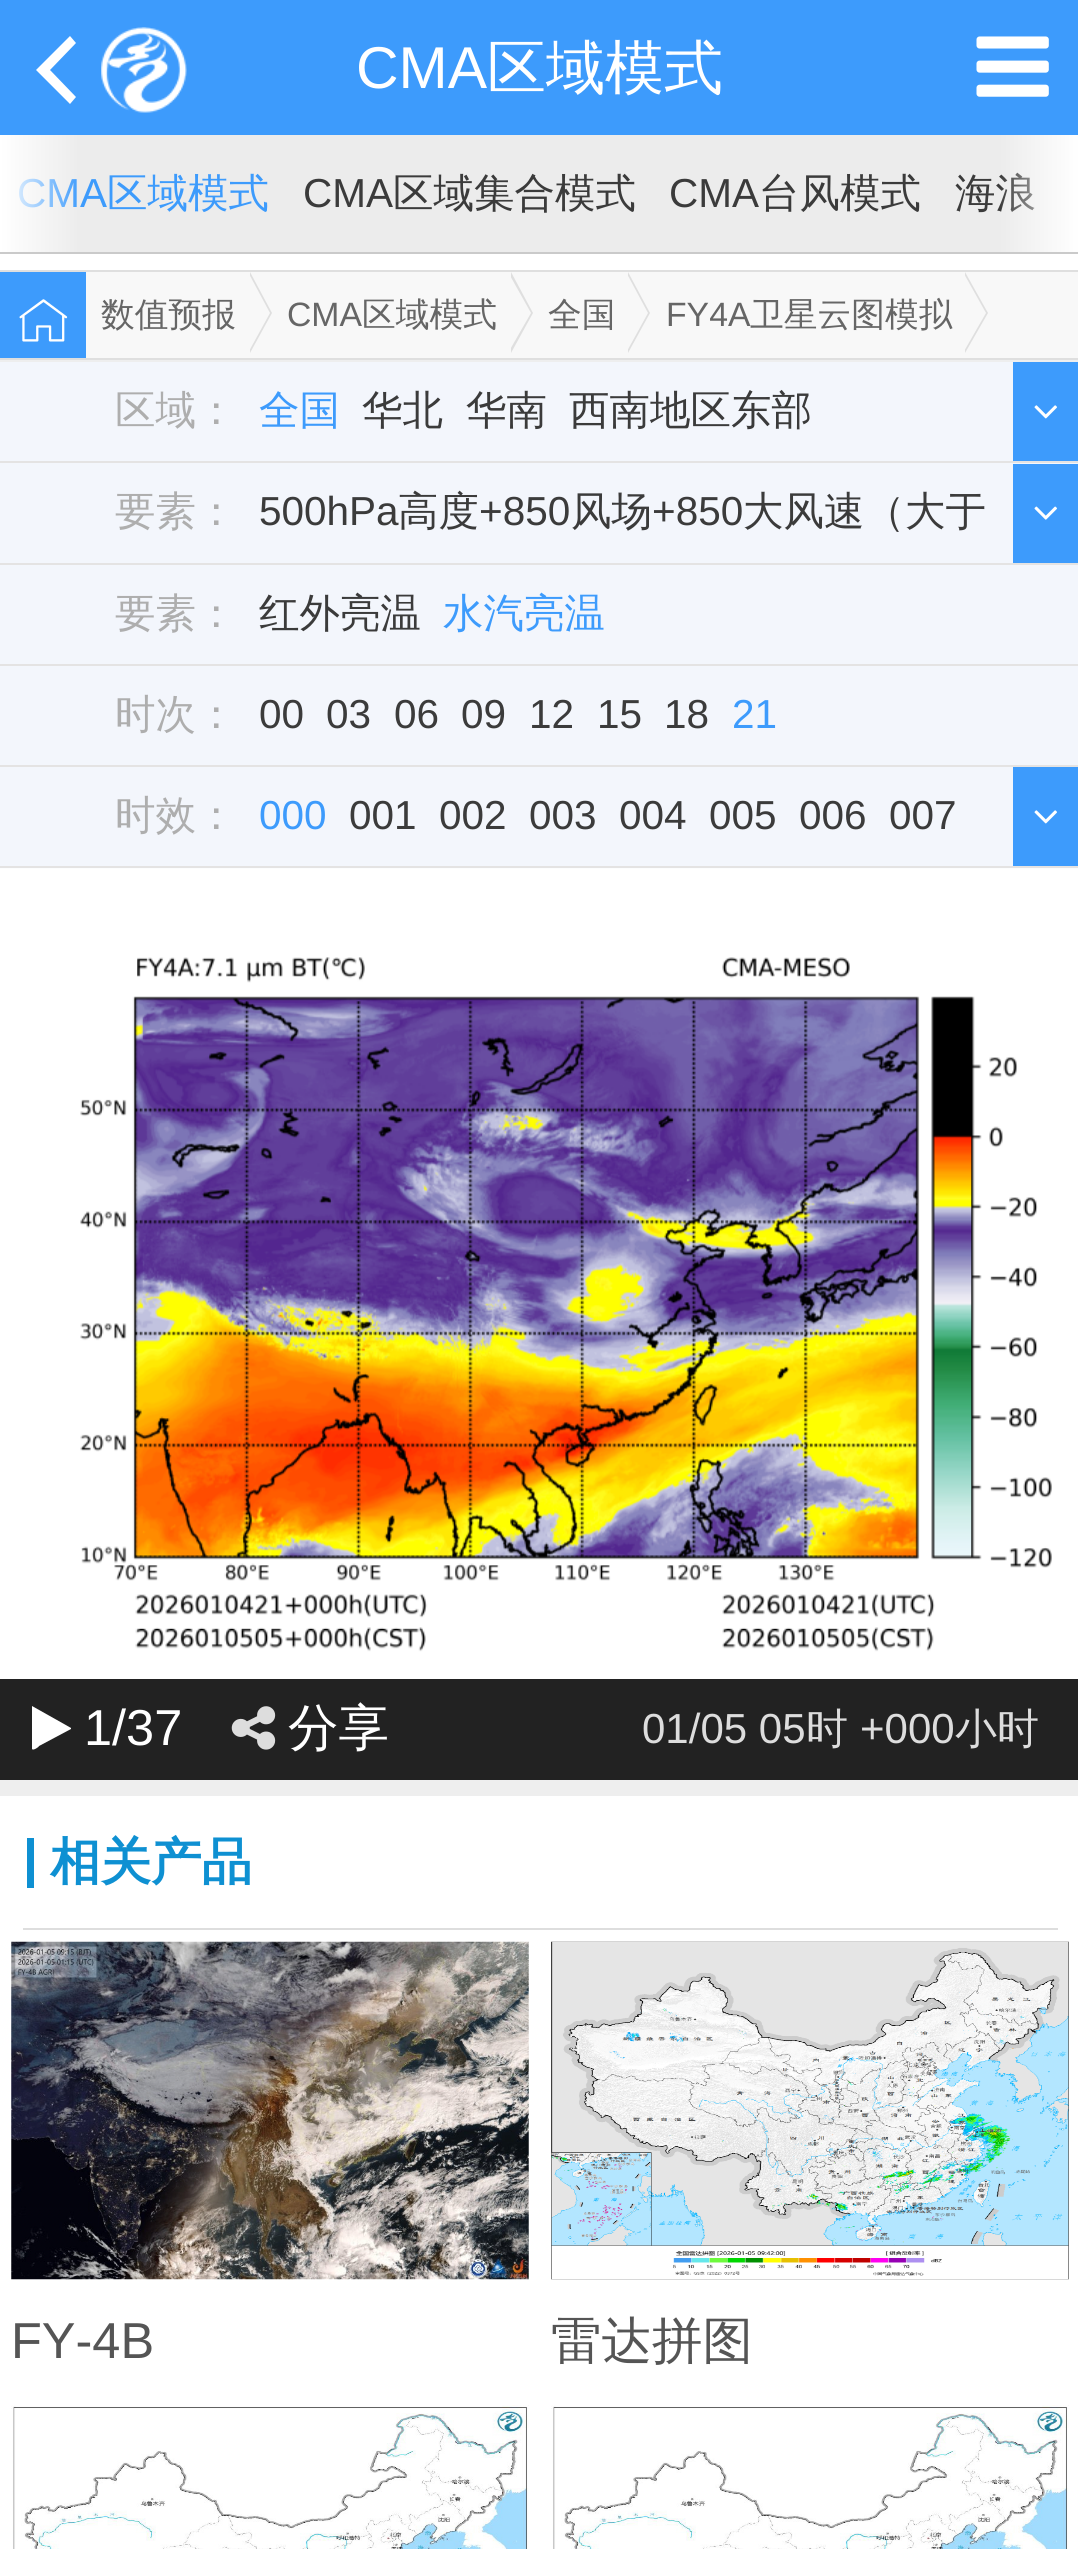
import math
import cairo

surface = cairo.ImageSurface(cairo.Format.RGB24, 1078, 2549)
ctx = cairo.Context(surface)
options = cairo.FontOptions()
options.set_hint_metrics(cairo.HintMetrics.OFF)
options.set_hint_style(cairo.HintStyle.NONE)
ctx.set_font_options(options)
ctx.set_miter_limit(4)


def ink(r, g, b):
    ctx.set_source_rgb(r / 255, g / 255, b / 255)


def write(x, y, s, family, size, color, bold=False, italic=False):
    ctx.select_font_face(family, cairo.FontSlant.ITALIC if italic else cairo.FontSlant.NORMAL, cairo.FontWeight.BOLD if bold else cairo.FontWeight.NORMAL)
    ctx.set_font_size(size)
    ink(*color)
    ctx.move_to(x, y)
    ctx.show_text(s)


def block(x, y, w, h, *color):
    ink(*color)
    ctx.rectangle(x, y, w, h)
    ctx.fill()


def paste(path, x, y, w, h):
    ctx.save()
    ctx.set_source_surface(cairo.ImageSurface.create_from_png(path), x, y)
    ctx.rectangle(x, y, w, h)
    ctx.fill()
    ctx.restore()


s1 = dict(family="Liberation Sans", size=59, color=(255, 255, 255))
s2 = dict(family="WenQuanYi Zen Hei Medium", size=59, color=(255, 255, 255))
s3 = dict(family="Liberation Sans", size=40.5, color=(61, 155, 252))
s4 = dict(family="WenQuanYi Zen Hei Medium", size=40.5, color=(59, 59, 59))
s5 = dict(family="WenQuanYi Zen Hei Medium", size=40.5, color=(61, 155, 252))
s6 = dict(family="Liberation Sans", size=40.5, color=(59, 59, 59))
s7 = dict(family="WenQuanYi Zen Hei Medium", size=33.75, color=(102, 102, 102))
s8 = dict(family="Liberation Sans", size=33.75, color=(102, 102, 102))
s9 = dict(family="WenQuanYi Zen Hei Medium", size=40.5, color=(174, 174, 174))
s10 = dict(family="Liberation Sans", size=50.5, color=(255, 255, 255))
s11 = dict(family="WenQuanYi Zen Hei Medium", size=50.5, color=(255, 255, 255))
s12 = dict(family="Liberation Sans", size=42, color=(221, 221, 221))
s13 = dict(family="WenQuanYi Zen Hei Medium", size=42, color=(221, 221, 221))
s14 = dict(family="WenQuanYi Zen Hei", size=50.5, color=(14, 144, 210), bold=True)
s15 = dict(family="Liberation Sans", size=50.5, color=(85, 85, 85))
s16 = dict(family="WenQuanYi Zen Hei Medium", size=50.5, color=(85, 85, 85))

ink(255, 255, 255)
ctx.paint()
block(0, 0, 1078, 135, 61, 155, 252)
ink(255, 255, 255)
ctx.new_path()
ctx.move_to(70, 36)
ctx.line_to(76, 43)
ctx.line_to(50, 70)
ctx.line_to(76, 97)
ctx.line_to(70, 104)
ctx.line_to(36, 70)
ctx.close_path()
ctx.fill()
paste("pic1.png", 101, 27, 86, 86)
write(356, 88, "CMA", **s1)
write(487, 88, "区域模式", **s2)
paste("pic2.png", 976, 36, 73, 61)
block(0, 135, 1078, 117, 236, 236, 236)
write(17, 207, "CMA", **s3)
gradient = cairo.LinearGradient(0, 194, 81, 194)
gradient.add_color_stop_rgba(0, 1, 1, 1, 1)
gradient.add_color_stop_rgba(1, 1, 1, 1, 0)
ctx.set_source(gradient)
ctx.rectangle(0, 135, 77, 117)
ctx.fill()
write(955, 207, "海浪", **s4)
gradient = cairo.LinearGradient(999, 194, 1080, 194)
gradient.add_color_stop_rgba(0, 1, 1, 1, 0)
gradient.add_color_stop_rgba(1, 1, 1, 1, 1)
ctx.set_source(gradient)
ctx.rectangle(1001, 135, 77, 117)
ctx.fill()
write(107, 207, "区域模式", **s5)
write(303, 207, "CMA", **s6)
write(393, 207, "区域集合模式", **s4)
write(669, 207, "CMA", **s6)
write(759, 207, "台风模式", **s4)
block(0, 252, 1078, 2, 202, 202, 202)
block(86, 272, 992, 86, 248, 248, 248)
block(0, 270, 1078, 2, 223, 223, 223)
block(0, 358, 1078, 2, 223, 223, 223)
block(0, 272, 86, 86, 61, 155, 252)
paste("pic3.png", 19, 299, 49, 43)
write(101, 326, "数值预报", **s7)
ink(223, 223, 223)
ctx.new_path()
ctx.move_to(250, 353)
ctx.line_to(250, 272)
ctx.line_to(272, 313)
ctx.close_path()
ctx.fill()
ink(248, 248, 248)
ctx.new_path()
ctx.move_to(248, 353)
ctx.line_to(248, 272)
ctx.line_to(270, 313)
ctx.close_path()
ctx.fill()
write(287, 326, "CMA", **s8)
write(362, 326, "区域模式", **s7)
ink(223, 223, 223)
ctx.new_path()
ctx.move_to(511, 353)
ctx.line_to(511, 272)
ctx.line_to(533, 313)
ctx.close_path()
ctx.fill()
ink(248, 248, 248)
ctx.new_path()
ctx.move_to(508, 353)
ctx.line_to(508, 272)
ctx.line_to(531, 313)
ctx.close_path()
ctx.fill()
write(548, 326, "全国", **s7)
ink(223, 223, 223)
ctx.new_path()
ctx.move_to(628, 353)
ctx.line_to(628, 272)
ctx.line_to(650, 313)
ctx.close_path()
ctx.fill()
ink(248, 248, 248)
ctx.new_path()
ctx.move_to(626, 353)
ctx.line_to(626, 272)
ctx.line_to(648, 313)
ctx.close_path()
ctx.fill()
write(666, 326, "FY4A", **s8)
write(750, 326, "卫星云图模拟", **s7)
ink(223, 223, 223)
ctx.new_path()
ctx.move_to(965, 353)
ctx.line_to(965, 272)
ctx.line_to(988, 313)
ctx.close_path()
ctx.fill()
ink(248, 248, 248)
ctx.new_path()
ctx.move_to(963, 353)
ctx.line_to(963, 272)
ctx.line_to(986, 313)
ctx.close_path()
ctx.fill()
block(0, 362, 1078, 507, 243, 246, 252)
block(0, 360, 1078, 2, 238, 238, 238)
block(0, 461, 1078, 2, 228, 227, 227)
write(115, 424, "区域：", **s9)
write(259, 424, "全国", **s5)
write(362, 424, "华北", **s4)
write(466, 424, "华南", **s4)
write(569, 424, "西南地区东部", **s4)
block(1013, 362, 65, 99, 61, 155, 252)
paste("pic4.png", 1034, 405, 23, 14)
block(0, 563, 1078, 2, 228, 227, 227)
write(115, 525, "要素：", **s9)
write(259, 525, "500hPa", **s6)
write(398, 525, "高度", **s4)
write(479, 525, "+850", **s6)
write(571, 525, "风场", **s4)
write(652, 525, "+850", **s6)
write(743, 525, "大风速（大于", **s4)
block(1013, 464, 65, 99, 61, 155, 252)
paste("pic5.png", 1034, 506, 23, 14)
block(0, 664, 1078, 2, 228, 227, 227)
write(115, 627, "要素：", **s9)
write(259, 627, "红外亮温", **s4)
write(443, 627, "水汽亮温", **s5)
block(0, 765, 1078, 2, 228, 227, 227)
write(115, 728, "时次：", **s9)
write(259, 728, "00", **s6)
write(326, 728, "03", **s6)
write(394, 728, "06", **s6)
write(461, 728, "09", **s6)
write(529, 728, "12", **s6)
write(597, 728, "15", **s6)
write(664, 728, "18", **s6)
write(732, 728, "21", **s3)
block(0, 866, 1078, 2, 228, 227, 227)
write(115, 829, "时效：", **s9)
write(259, 829, "000", **s3)
write(349, 829, "001", **s6)
write(439, 829, "002", **s6)
write(529, 829, "003", **s6)
write(619, 829, "004", **s6)
write(709, 829, "005", **s6)
write(799, 829, "006", **s6)
write(889, 829, "007", **s6)
block(1013, 767, 65, 99, 61, 155, 252)
paste("pic4.png", 1034, 810, 23, 14)
paste("pic6.png", 0, 868, 1078, 784)
block(0, 1679, 1078, 101, 34, 34, 34)
ink(255, 255, 255)
ctx.new_path()
ctx.move_to(71, 1729)
ctx.line_to(39, 1746)
ctx.curve_to(39, 1747, 33, 1751, 32, 1749)
ctx.line_to(32, 1707)
ctx.line_to(32, 1706)
ctx.line_to(64, 1724)
ctx.line_to(71, 1728)
ctx.close_path()
ctx.fill()
write(84, 1745, "1/37", **s10)
paste("pic7.png", 231, 1706, 45, 44)
write(288, 1745, "分享", **s11)
write(642, 1743, "01/05 05", **s12)
write(806, 1743, "时", **s13)
write(860, 1743, "+000", **s12)
write(955, 1743, "小时", **s13)
block(0, 1780, 1078, 16, 238, 238, 238)
block(23, 1928, 1035, 2, 222, 222, 222)
block(27, 1838, 7, 50, 14, 144, 210)
write(50, 1879, "相关产品", **s14)
paste("pic8.png", 11, 1941, 518, 339)
write(11, 2358, "FY-4B", **s15)
paste("pic9.png", 551, 1941, 518, 339)
write(551, 2358, "雷达拼图", **s16)
paste("pic10.png", 11, 2405, 518, 144)
paste("pic10.png", 551, 2405, 518, 144)
surface.write_to_png("screenshot.png")
